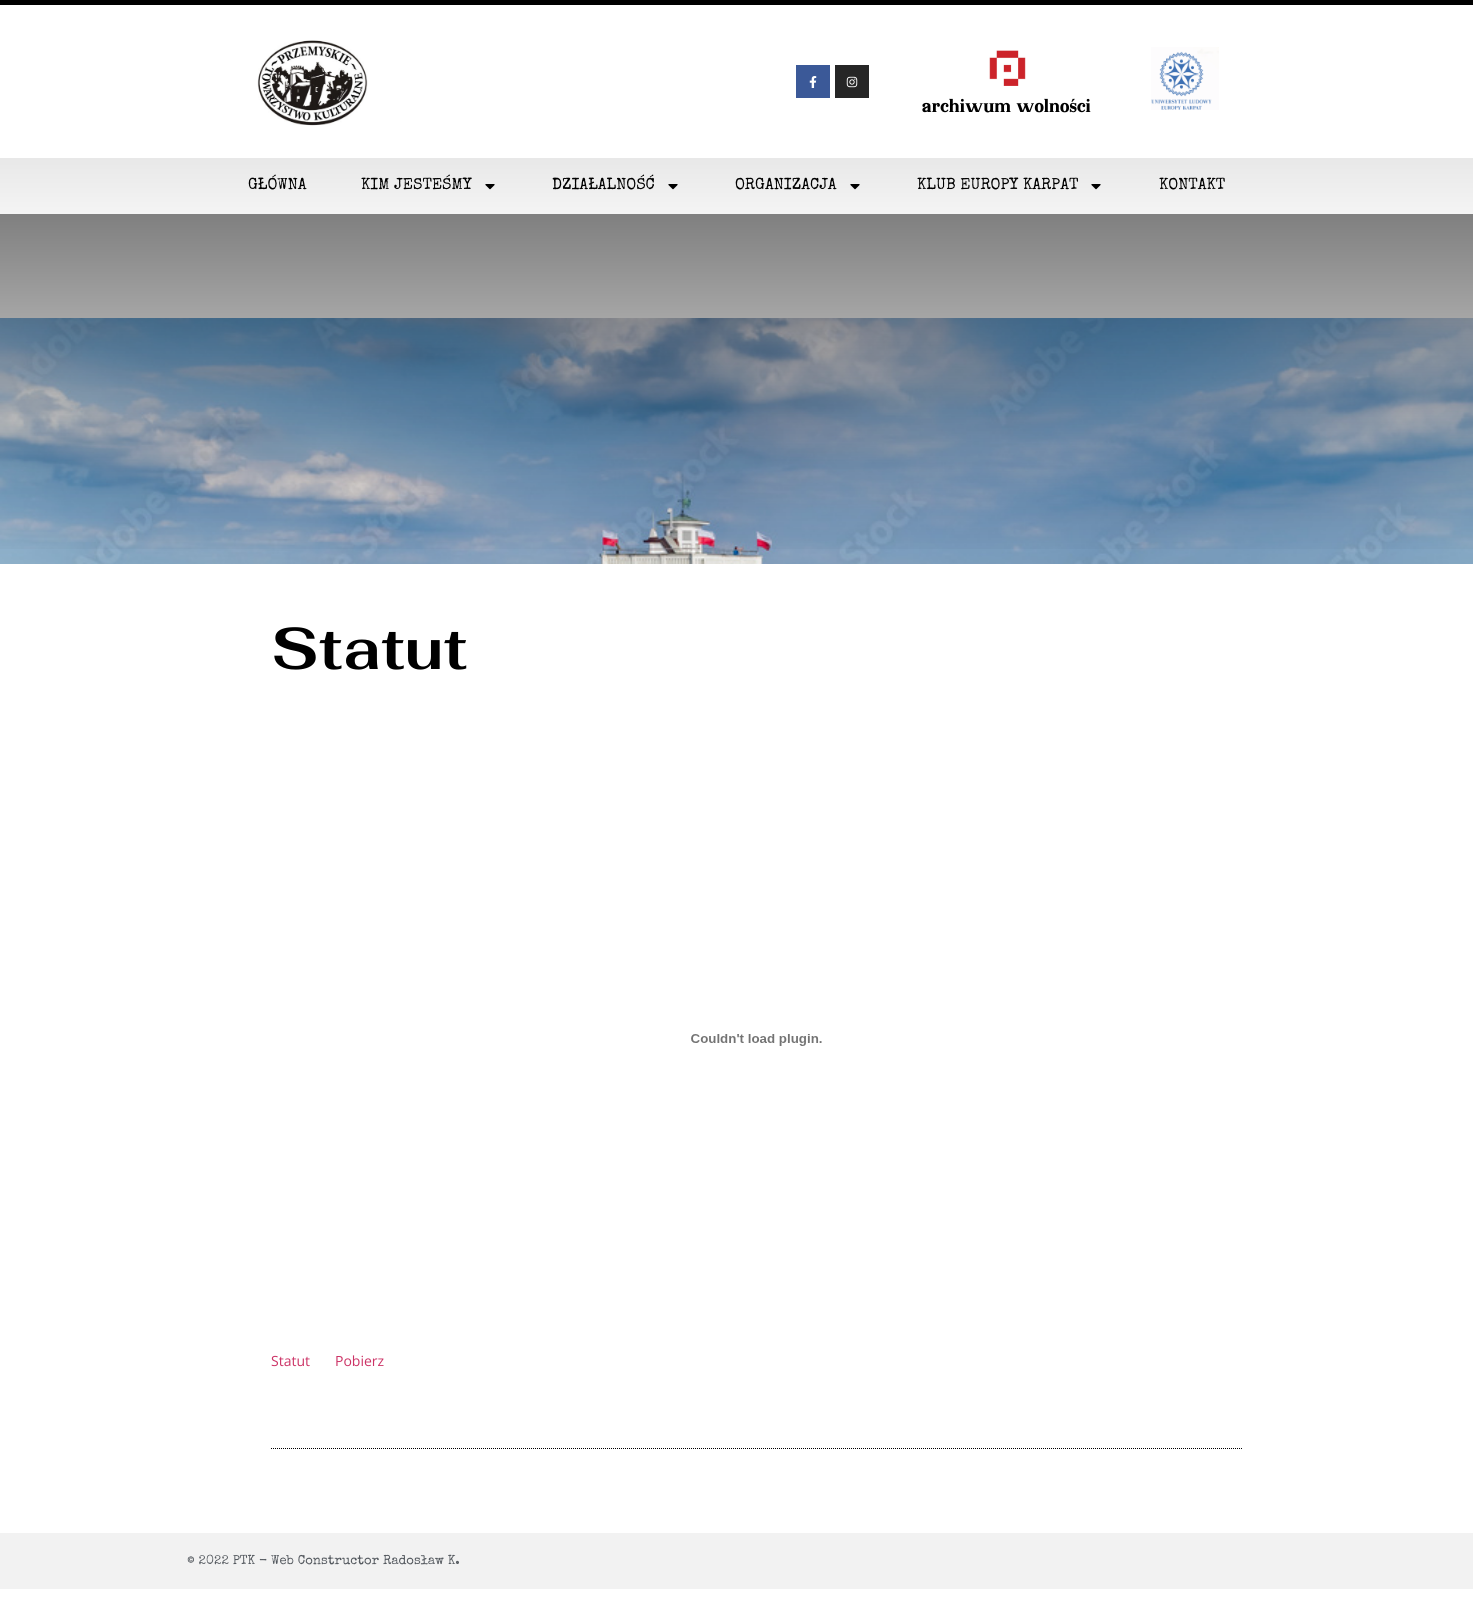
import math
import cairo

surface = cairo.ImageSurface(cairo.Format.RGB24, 1473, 1616)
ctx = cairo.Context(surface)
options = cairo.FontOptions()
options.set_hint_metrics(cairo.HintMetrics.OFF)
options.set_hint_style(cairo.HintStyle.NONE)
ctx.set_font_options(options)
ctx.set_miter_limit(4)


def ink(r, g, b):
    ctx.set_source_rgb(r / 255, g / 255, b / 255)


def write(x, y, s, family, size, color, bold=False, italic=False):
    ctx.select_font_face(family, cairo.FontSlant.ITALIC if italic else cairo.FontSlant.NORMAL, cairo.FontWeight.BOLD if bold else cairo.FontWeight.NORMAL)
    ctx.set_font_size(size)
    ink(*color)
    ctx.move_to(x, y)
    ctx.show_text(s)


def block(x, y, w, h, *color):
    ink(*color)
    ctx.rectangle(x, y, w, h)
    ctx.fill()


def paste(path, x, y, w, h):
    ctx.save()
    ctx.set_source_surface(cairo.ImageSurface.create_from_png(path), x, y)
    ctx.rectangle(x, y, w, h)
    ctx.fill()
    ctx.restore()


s1 = dict(family="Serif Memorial", size=17.5, color=(0, 0, 0), bold=True)
s2 = dict(family="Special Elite", size=16, color=(0, 0, 0))
s3 = dict(family="Fahkwang", size=59, color=(0, 0, 0), bold=True)
s4 = dict(family="Open Sans", size=14, color=(204, 51, 102))
s5 = dict(family="Special Elite", size=13, color=(84, 89, 95))

ink(255, 255, 255)
ctx.paint()
block(0, 0, 1473, 5, 0, 0, 0)
paste("pic1.png", 257, 40, 111, 86)
block(796, 65, 34, 33, 59, 89, 152)
paste("pic2.png", 809, 76, 8, 12)
block(835, 65, 34, 33, 38, 38, 38)
paste("pic3.png", 846, 76, 12, 12)
paste("pic4.png", 1151, 47, 68, 63)
paste("pic5.png", 989, 50, 37, 36)
write(922, 112, "archiwum wolności", **s1)
gradient = cairo.LinearGradient(737, 158, 737, 214)
gradient.add_color_stop_rgba(0, 0.91, 0.91, 0.91, 1)
gradient.add_color_stop_rgba(1, 0.957, 0.957, 0.957, 1)
ctx.set_source(gradient)
ctx.rectangle(0, 158, 1473, 56)
ctx.fill()
write(248, 189, "GŁÓWNA", **s2)
write(361, 189, "KIM JESTEŚMY", **s2)
paste("pic6.png", 485, 184, 10, 6)
write(552, 189, "DZIAŁALNOŚĆ", **s2)
paste("pic6.png", 668, 184, 10, 6)
write(735, 189, "ORGANIZACJA", **s2)
paste("pic6.png", 850, 184, 10, 6)
write(917, 189, "KLUB EUROPY KARPAT", **s2)
paste("pic6.png", 1091, 184, 10, 6)
write(1159, 189, "KONTAKT", **s2)
paste("pic7.png", 0, 318, 1473, 246)
gradient = cairo.LinearGradient(737, 214, 737, 564)
gradient.add_color_stop_rgba(0, 0, 0, 0, 0.5)
gradient.add_color_stop_rgba(1, 0, 0, 0, 0)
ctx.set_source(gradient)
ctx.rectangle(0, 214, 1473, 335)
ctx.fill()
write(271, 669, "Statut", **s3)
paste("pic8.png", 691, 1034, 131, 12)
write(271, 1366, "Statut", **s4)
write(335, 1366, "Pobierz", **s4)
ctx.new_path()
ctx.move_to(271, 1448.5)
ctx.line_to(1242, 1448.5)
ink(0, 0, 0)
ctx.set_line_width(1)
ctx.set_dash([1, 1])
ctx.stroke()
block(0, 1533, 1473, 56, 242, 242, 242)
write(187, 1564, "© 2022 PTK - Web Constructor Radosław K.", **s5)
surface.write_to_png("screenshot.png")
